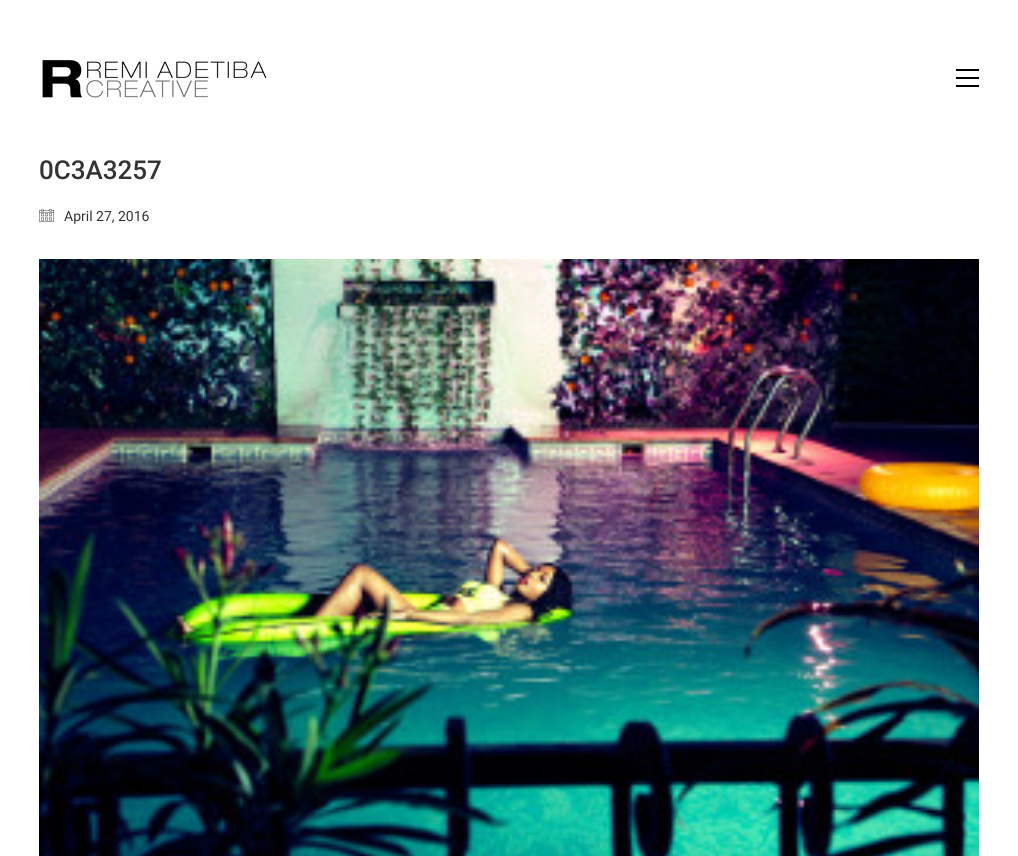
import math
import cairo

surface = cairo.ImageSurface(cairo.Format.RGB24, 1018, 856)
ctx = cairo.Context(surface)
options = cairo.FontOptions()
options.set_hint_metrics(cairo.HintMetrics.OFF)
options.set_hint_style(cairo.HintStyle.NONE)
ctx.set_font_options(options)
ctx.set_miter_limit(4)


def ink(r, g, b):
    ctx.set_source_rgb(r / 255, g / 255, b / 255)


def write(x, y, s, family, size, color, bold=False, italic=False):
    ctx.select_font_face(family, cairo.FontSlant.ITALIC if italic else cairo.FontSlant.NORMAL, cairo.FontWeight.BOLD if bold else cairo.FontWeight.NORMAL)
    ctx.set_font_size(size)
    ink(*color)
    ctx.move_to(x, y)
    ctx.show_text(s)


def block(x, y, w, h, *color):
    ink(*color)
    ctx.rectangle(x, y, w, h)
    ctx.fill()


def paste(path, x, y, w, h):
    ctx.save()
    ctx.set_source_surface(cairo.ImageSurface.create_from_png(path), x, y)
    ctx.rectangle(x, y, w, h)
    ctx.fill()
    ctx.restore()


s1 = dict(family="Roboto Medium", size=26, color=(51, 51, 51))
s2 = dict(family="Roboto", size=14, color=(51, 51, 51))

ink(255, 255, 255)
ctx.paint()
paste("pic1.png", 42, 59, 225, 39)
block(956, 69, 23, 2, 0, 0, 0)
block(956, 77, 23, 2, 0, 0, 0)
block(956, 85, 23, 2, 0, 0, 0)
write(39, 179, "0C3A3257", **s1)
paste("pic2.png", 39, 209, 15, 13)
write(64, 221, "April 27, 2016", **s2)
paste("pic3.png", 39, 259, 940, 597)
surface.write_to_png("screenshot.png")
